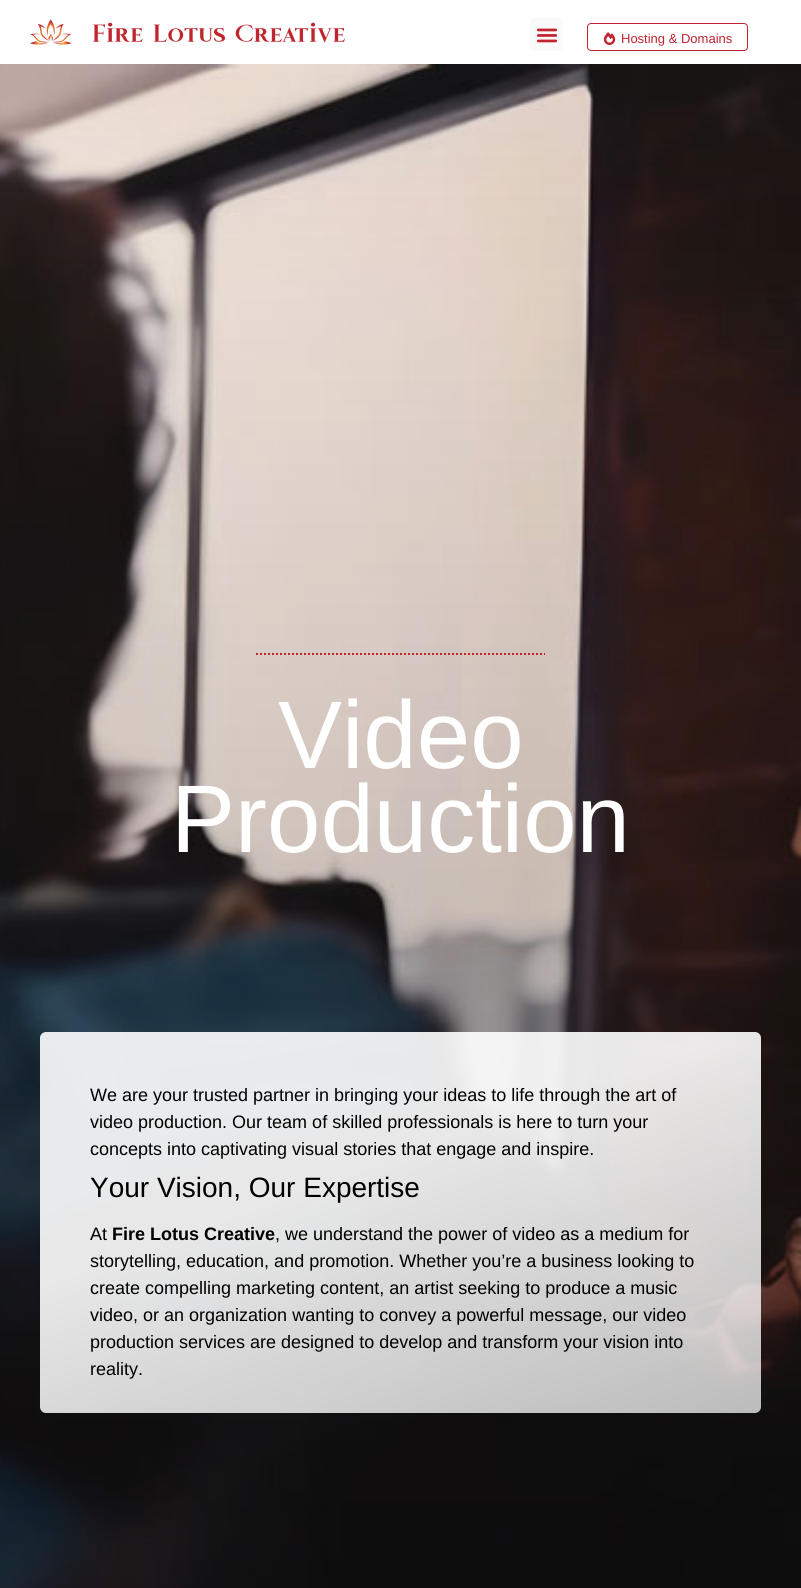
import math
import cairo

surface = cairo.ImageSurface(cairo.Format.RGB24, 801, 1588)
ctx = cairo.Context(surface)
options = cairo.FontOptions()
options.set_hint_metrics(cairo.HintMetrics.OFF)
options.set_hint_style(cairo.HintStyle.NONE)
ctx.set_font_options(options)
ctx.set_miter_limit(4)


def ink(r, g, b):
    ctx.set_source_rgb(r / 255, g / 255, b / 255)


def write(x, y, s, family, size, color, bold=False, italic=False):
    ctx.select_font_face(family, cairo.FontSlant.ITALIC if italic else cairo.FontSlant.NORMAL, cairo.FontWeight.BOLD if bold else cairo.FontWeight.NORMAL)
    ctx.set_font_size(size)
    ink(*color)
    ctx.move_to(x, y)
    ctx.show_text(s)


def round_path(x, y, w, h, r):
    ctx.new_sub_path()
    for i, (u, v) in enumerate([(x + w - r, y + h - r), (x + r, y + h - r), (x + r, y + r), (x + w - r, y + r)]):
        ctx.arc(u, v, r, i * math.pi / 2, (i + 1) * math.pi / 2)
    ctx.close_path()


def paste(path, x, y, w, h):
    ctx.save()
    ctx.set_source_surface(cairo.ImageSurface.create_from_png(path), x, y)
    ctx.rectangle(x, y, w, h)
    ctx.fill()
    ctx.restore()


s1 = dict(family="Liberation Sans", size=13, color=(192, 36, 46))
s2 = dict(family="Liberation Sans", size=96, color=(255, 255, 255))
s3 = dict(family="Liberation Sans", size=18, color=(0, 0, 0))
s4 = dict(family="Liberation Sans", size=28, color=(0, 0, 0))
s5 = dict(family="Liberation Sans", size=18, color=(0, 0, 0), bold=True)

ink(255, 255, 255)
ctx.paint()
paste("pic1.png", 30, 19, 42, 26)
paste("pic2.png", 92, 22, 254, 21)
ink(250, 250, 250)
round_path(530, 18, 33, 33, 4)
ctx.fill()
paste("pic3.png", 536, 28, 22, 15)
round_path(587.5, 23.5, 160, 27, 3.5)
ink(192, 36, 46)
ctx.set_line_width(1)
ctx.stroke()
paste("pic4.png", 603, 32, 13, 13)
write(621, 43, "Hosting & Domains", **s1)
paste("pic5.png", 0, 64, 801, 1524)
ctx.new_path()
ctx.move_to(256, 654)
ctx.line_to(545, 654)
ctx.set_line_width(2)
ctx.set_dash([2, 2])
ctx.stroke()
write(278, 768, "Video", **s2)
write(171, 852, "Production", **s2)
write(90, 1101, "We are your trusted partner in bringing your ideas to life through the art of", **s3)
write(90, 1128, "video production. Our team of skilled professionals is here to turn your", **s3)
write(90, 1155, "concepts into captivating visual stories that engage and inspire.", **s3)
write(90, 1197, "Your Vision, Our Expertise", **s4)
write(90, 1240, "At", **s3)
write(112, 1240, "Fire Lotus Creative", **s5)
write(275, 1240, ", we understand the power of video as a medium for", **s3)
write(90, 1267, "storytelling, education, and promotion. Whether you’re a business looking to", **s3)
write(90, 1294, "create compelling marketing content, an artist seeking to produce a music", **s3)
write(90, 1321, "video, or an organization wanting to convey a powerful message, our video", **s3)
write(90, 1348, "production services are designed to develop and transform your vision into", **s3)
write(90, 1375, "reality.", **s3)
surface.write_to_png("screenshot.png")
